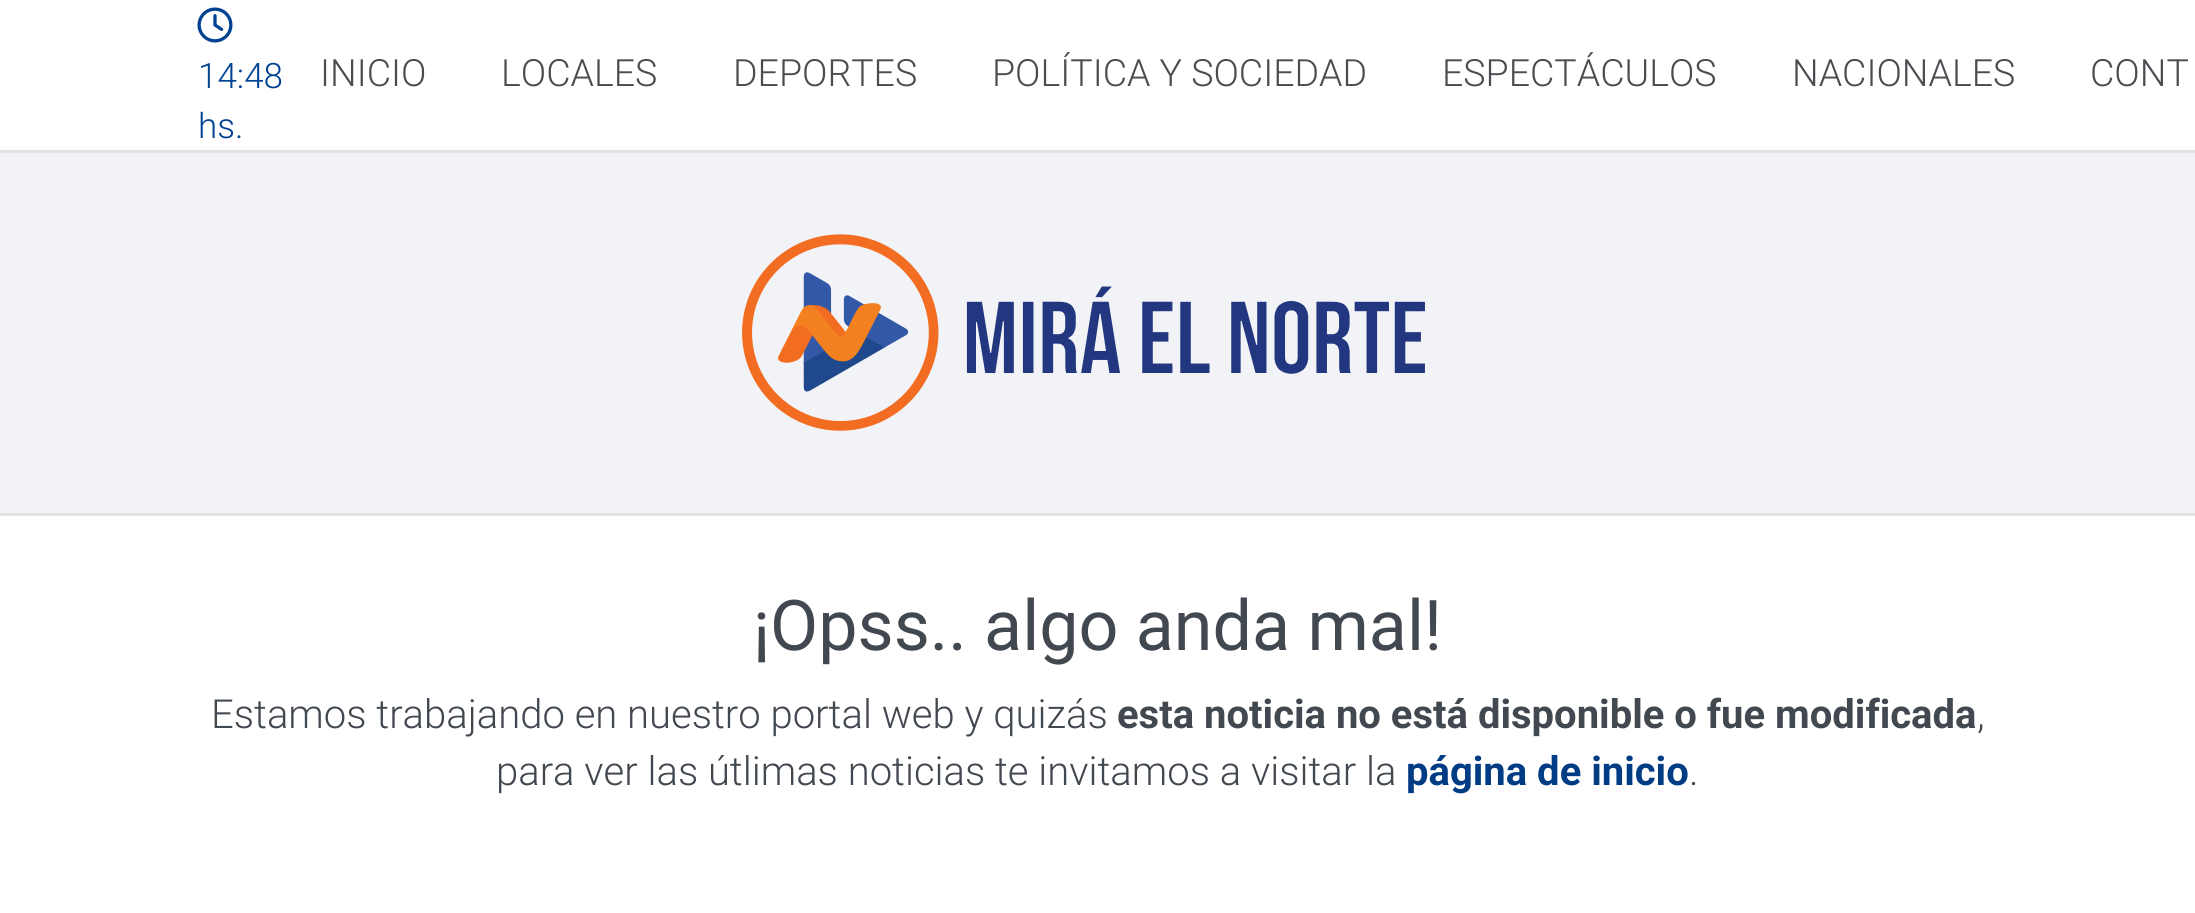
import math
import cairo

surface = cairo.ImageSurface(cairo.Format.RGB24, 2195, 913)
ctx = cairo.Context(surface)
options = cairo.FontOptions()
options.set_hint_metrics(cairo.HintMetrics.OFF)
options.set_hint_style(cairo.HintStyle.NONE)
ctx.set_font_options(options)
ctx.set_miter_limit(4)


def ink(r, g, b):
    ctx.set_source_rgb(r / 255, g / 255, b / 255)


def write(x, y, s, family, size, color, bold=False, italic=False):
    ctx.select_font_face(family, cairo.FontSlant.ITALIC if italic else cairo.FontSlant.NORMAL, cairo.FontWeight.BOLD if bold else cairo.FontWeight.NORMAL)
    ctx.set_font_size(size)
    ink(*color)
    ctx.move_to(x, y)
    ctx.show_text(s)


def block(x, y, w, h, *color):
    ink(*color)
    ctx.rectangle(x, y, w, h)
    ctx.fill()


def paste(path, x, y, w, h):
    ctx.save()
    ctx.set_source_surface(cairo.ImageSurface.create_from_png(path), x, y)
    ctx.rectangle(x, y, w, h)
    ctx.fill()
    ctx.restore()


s1 = dict(family="Roboto Light", size=35, color=(0, 66, 145))
s2 = dict(family="Roboto Light", size=37.5, color=(73, 76, 80))
s3 = dict(family="Roboto", size=70, color=(66, 72, 79))
s4 = dict(family="Roboto Light", size=40, color=(66, 72, 79))
s5 = dict(family="Roboto", size=40, color=(66, 72, 79), bold=True)
s6 = dict(family="Roboto", size=40, color=(0, 60, 132), bold=True)

ink(255, 255, 255)
ctx.paint()
block(0, 153, 2195, 360, 242, 243, 247)
paste("pic1.png", 197, 7, 36, 36)
write(198, 88, "14:48", **s1)
write(198, 138, "hs.", **s1)
write(320, 86, "INICIO", **s2)
write(501, 86, "LOCALES", **s2)
write(733, 86, "DEPORTES", **s2)
write(992, 86, "POLÍTICA Y SOCIEDAD", **s2)
write(1442, 86, "ESPECTÁCULOS", **s2)
write(1792, 86, "NACIONALES", **s2)
write(2090, 86, "CONT", **s2)
block(0, 150, 2195, 3, 227, 227, 227)
block(0, 513, 2195, 3, 227, 227, 227)
paste("pic2.png", 742, 234, 683, 197)
write(753, 650, "¡Opss.. algo anda mal!", **s3)
write(211, 728, "Estamos trabajando en nuestro portal web y quizás", **s4)
write(1117, 728, "esta noticia no está disponible o fue modificada", **s5)
write(1977, 728, ",", **s4)
write(496, 785, "para ver las útlimas noticias te invitamos a visitar la", **s4)
write(1406, 785, "página de inicio", **s6)
write(1689, 785, ".", **s4)
surface.write_to_png("screenshot.png")
